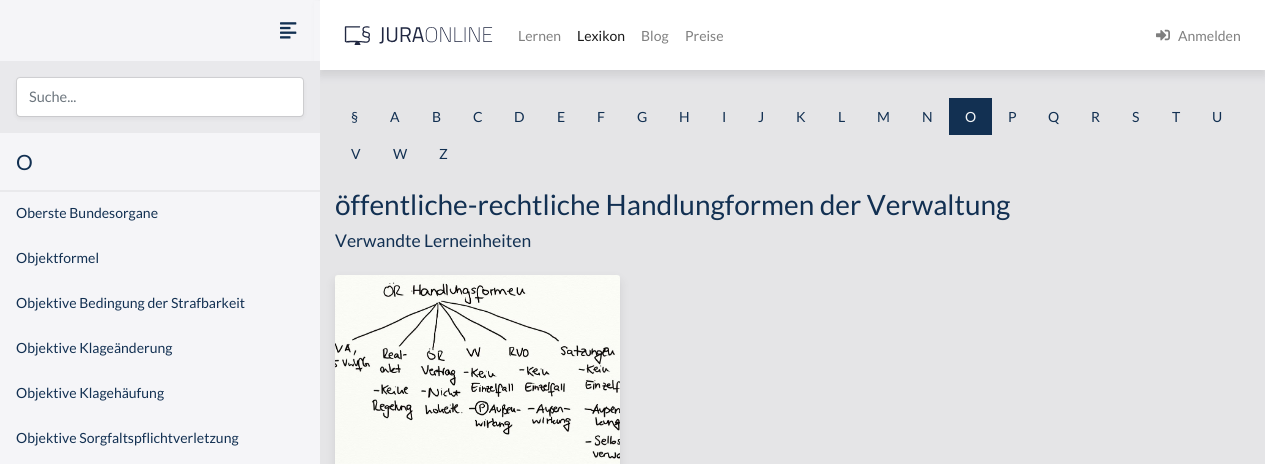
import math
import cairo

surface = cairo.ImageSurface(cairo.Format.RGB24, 1265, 464)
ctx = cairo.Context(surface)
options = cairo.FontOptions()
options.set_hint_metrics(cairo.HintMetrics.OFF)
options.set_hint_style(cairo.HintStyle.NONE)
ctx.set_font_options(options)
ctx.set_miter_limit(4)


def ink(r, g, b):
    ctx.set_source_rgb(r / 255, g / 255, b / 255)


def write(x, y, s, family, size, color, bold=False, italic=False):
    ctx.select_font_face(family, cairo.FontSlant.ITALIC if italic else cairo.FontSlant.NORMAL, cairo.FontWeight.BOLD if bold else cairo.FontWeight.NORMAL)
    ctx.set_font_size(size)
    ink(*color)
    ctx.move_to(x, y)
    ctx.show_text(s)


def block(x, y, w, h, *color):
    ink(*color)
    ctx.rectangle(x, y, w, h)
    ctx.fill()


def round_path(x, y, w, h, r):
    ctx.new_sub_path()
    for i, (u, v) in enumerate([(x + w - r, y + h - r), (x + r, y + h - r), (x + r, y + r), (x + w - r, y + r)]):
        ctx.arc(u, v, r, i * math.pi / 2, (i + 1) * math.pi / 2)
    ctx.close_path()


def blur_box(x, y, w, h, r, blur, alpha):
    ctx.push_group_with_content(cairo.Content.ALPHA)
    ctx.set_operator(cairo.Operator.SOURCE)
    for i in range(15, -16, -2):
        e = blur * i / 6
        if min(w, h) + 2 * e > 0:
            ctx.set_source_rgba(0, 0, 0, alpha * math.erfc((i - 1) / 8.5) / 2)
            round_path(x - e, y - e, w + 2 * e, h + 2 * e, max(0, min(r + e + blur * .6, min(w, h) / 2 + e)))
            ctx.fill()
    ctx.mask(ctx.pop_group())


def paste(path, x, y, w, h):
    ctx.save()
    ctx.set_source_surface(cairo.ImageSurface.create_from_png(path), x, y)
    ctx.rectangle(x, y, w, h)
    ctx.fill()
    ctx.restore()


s1 = dict(family="Lato", size=14.5, color=(108, 117, 125))
s2 = dict(family="Lato", size=21, color=(18, 48, 82))
s3 = dict(family="Lato", size=14, color=(18, 48, 82))
s4 = dict(family="Lato", size=14, color=(128, 128, 128))
s5 = dict(family="Lato", size=14, color=(26, 26, 26))
s6 = dict(family="Lato", size=14, color=(242, 244, 246))
s7 = dict(family="Lato", size=28, color=(18, 48, 82))
s8 = dict(family="Lato", size=17.5, color=(18, 48, 82))

ink(245, 245, 248)
ctx.paint()
ink(0, 0, 0)
blur_box(320, 5, 945, 70, 0, 5, 0.1)
block(314, 1, 6, 78, 245, 245, 248)
paste("pic1.png", 280, 22, 17, 17)
block(0, 61, 320, 72, 233, 233, 236)
ink(0, 0, 0)
blur_box(16, 79, 288, 40, 4, 2, 0.05)
ink(255, 255, 255)
round_path(17, 78, 286, 38, 3)
ctx.fill()
round_path(16.5, 77.5, 287, 39, 3.5)
ctx.set_source_rgba(0, 0, 0, 0.1)
ctx.set_line_width(1)
ctx.stroke()
write(29, 102, "Suche...", **s1)
block(0, 190, 320, 2, 233, 233, 236)
write(16, 170, "O", **s2)
write(16, 218, "Oberste Bundesorgane", **s3)
write(16, 263, "Objektformel", **s3)
write(16, 308, "Objektive Bedingung der Strafbarkeit", **s3)
write(16, 353, "Objektive Klageänderung", **s3)
write(16, 398, "Objektive Klagehäufung", **s3)
write(16, 443, "Objektive Sorgfaltspflichtverletzung", **s3)
block(320, 0, 945, 70, 255, 255, 255)
paste("pic2.png", 344, 26, 149, 19)
write(518, 41, "Lernen", **s4)
write(577, 41, "Lexikon", **s5)
write(641, 41, "Blog", **s4)
write(685, 41, "Preise", **s4)
paste("pic3.png", 1156, 29, 14, 12)
write(1178, 41, "Anmelden", **s4)
ctx.set_source_rgba(0, 0, 0, 0.07)
ctx.rectangle(320, 70, 945, 394)
ctx.fill()
write(351, 122, "§", **s3)
write(390, 122, "A", **s3)
write(432, 122, "B", **s3)
write(473, 122, "C", **s3)
write(514, 122, "D", **s3)
write(557, 122, "E", **s3)
write(597, 122, "F", **s3)
write(637, 122, "G", **s3)
write(679, 122, "H", **s3)
write(722, 122, "I", **s3)
write(758, 122, "J", **s3)
write(796, 122, "K", **s3)
write(838, 122, "L", **s3)
write(877, 122, "M", **s3)
write(922, 122, "N", **s3)
block(949, 98, 43, 37, 18, 48, 82)
write(965, 122, "O", **s6)
write(1008, 122, "P", **s3)
write(1048, 122, "Q", **s3)
write(1091, 122, "R", **s3)
write(1132, 122, "S", **s3)
write(1172, 122, "T", **s3)
write(1212, 122, "U", **s3)
write(351, 159, "V", **s3)
write(393, 159, "W", **s3)
write(439, 159, "Z", **s3)
write(335, 215, "öffentliche-rechtliche Handlungformen der Verwaltung", **s7)
write(335, 247, "Verwandte Lerneinheiten", **s8)
ink(0, 0, 0)
blur_box(335, 280, 285, 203, 4, 5, 0.1)
paste("pic4.png", 335, 275, 285, 189)
surface.write_to_png("screenshot.png")
